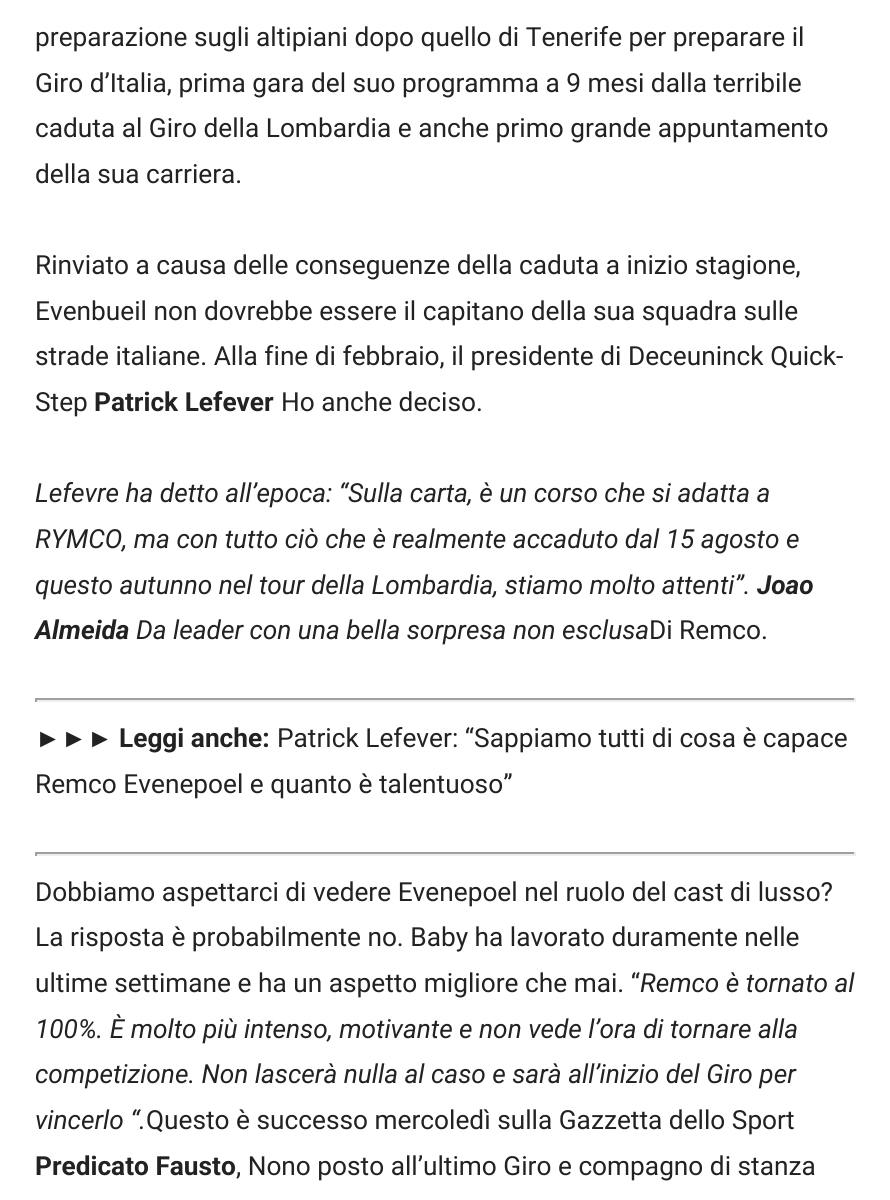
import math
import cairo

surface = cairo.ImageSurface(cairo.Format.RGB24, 890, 1200)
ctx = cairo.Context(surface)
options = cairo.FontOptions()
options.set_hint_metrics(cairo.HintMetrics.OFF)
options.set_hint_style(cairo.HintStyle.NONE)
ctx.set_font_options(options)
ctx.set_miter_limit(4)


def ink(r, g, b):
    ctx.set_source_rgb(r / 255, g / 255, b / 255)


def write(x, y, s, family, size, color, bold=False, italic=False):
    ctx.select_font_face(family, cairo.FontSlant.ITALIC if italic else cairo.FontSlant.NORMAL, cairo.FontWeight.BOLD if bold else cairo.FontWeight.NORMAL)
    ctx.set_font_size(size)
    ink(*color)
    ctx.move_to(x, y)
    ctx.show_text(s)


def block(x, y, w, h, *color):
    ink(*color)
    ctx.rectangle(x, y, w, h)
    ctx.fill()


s1 = dict(family="Roboto", size=26.25, color=(34, 34, 34))
s2 = dict(family="Roboto", size=26.25, color=(34, 34, 34), bold=True)
s3 = dict(family="Roboto", size=26.25, color=(34, 34, 34), italic=True)
s4 = dict(family="Roboto", size=26.25, color=(34, 34, 34), bold=True, italic=True)
s5 = dict(family="Liberation Sans", size=26.25, color=(34, 34, 34), bold=True)

ink(255, 255, 255)
ctx.paint()
write(35, 46, "preparazione sugli altipiani dopo quello di Tenerife per preparare il", **s1)
write(35, 92, "Giro d’Italia, prima gara del suo programma a 9 mesi dalla terribile", **s1)
write(35, 137, "caduta al Giro della Lombardia e anche primo grande appuntamento", **s1)
write(35, 183, "della sua carriera.", **s1)
write(35, 274, "Rinviato a causa delle conseguenze della caduta a inizio stagione,", **s1)
write(35, 320, "Evenbueil non dovrebbe essere il capitano della sua squadra sulle", **s1)
write(35, 365, "strade italiane. Alla fine di febbraio, il presidente di Deceuninck Quick-", **s1)
write(35, 411, "Step", **s1)
write(94, 411, "Patrick Lefever", **s2)
write(281, 411, "Ho anche deciso.", **s1)
write(35, 502, "Lefevre ha detto all’epoca: “Sulla carta, è un corso che si adatta a", **s3)
write(35, 548, "RYMCO, ma con tutto ciò che è realmente accaduto dal 15 agosto e", **s3)
write(35, 594, "questo autunno nel tour della Lombardia, stiamo molto attenti”.", **s3)
write(757, 594, "Joao", **s4)
write(35, 639, "Almeida", **s4)
write(136, 639, "Da leader con una bella sorpresa non esclusa", **s3)
write(649, 639, "Di Remco.", **s1)
block(35, 698, 821, 2, 159, 159, 159)
block(854, 698, 2, 4, 238, 238, 238)
block(35, 700, 821, 2, 238, 238, 238)
block(35, 698, 2, 4, 159, 159, 159)
write(35, 747, "►►►", **s5)
write(119, 747, "Leggi anche:", **s2)
write(277, 747, "Patrick Lefever: “Sappiamo tutti di cosa è capace", **s1)
write(35, 793, "Remco Evenepoel e quanto è talentuoso”", **s1)
block(35, 852, 821, 2, 159, 159, 159)
block(854, 852, 2, 4, 238, 238, 238)
block(35, 854, 821, 2, 238, 238, 238)
block(35, 852, 2, 4, 159, 159, 159)
write(35, 901, "Dobbiamo aspettarci di vedere Evenepoel nel ruolo del cast di lusso?", **s1)
write(35, 946, "La risposta è probabilmente no. Baby ha lavorato duramente nelle", **s1)
write(35, 992, "ultime settimane e ha un aspetto migliore che mai. “", **s1)
write(640, 992, "Remco è tornato al", **s3)
write(35, 1038, "100%. È molto più intenso, motivante e non vede l’ora di tornare alla", **s3)
write(35, 1083, "competizione. Non lascerà nulla al caso e sarà all’inizio del Giro per", **s3)
write(35, 1129, "vincerlo “.", **s3)
write(146, 1129, "Questo è successo mercoledì sulla Gazzetta dello Sport", **s1)
write(35, 1175, "Predicato Fausto", **s2)
write(236, 1175, ", Nono posto all’ultimo Giro e compagno di stanza", **s1)
surface.write_to_png("screenshot.png")
